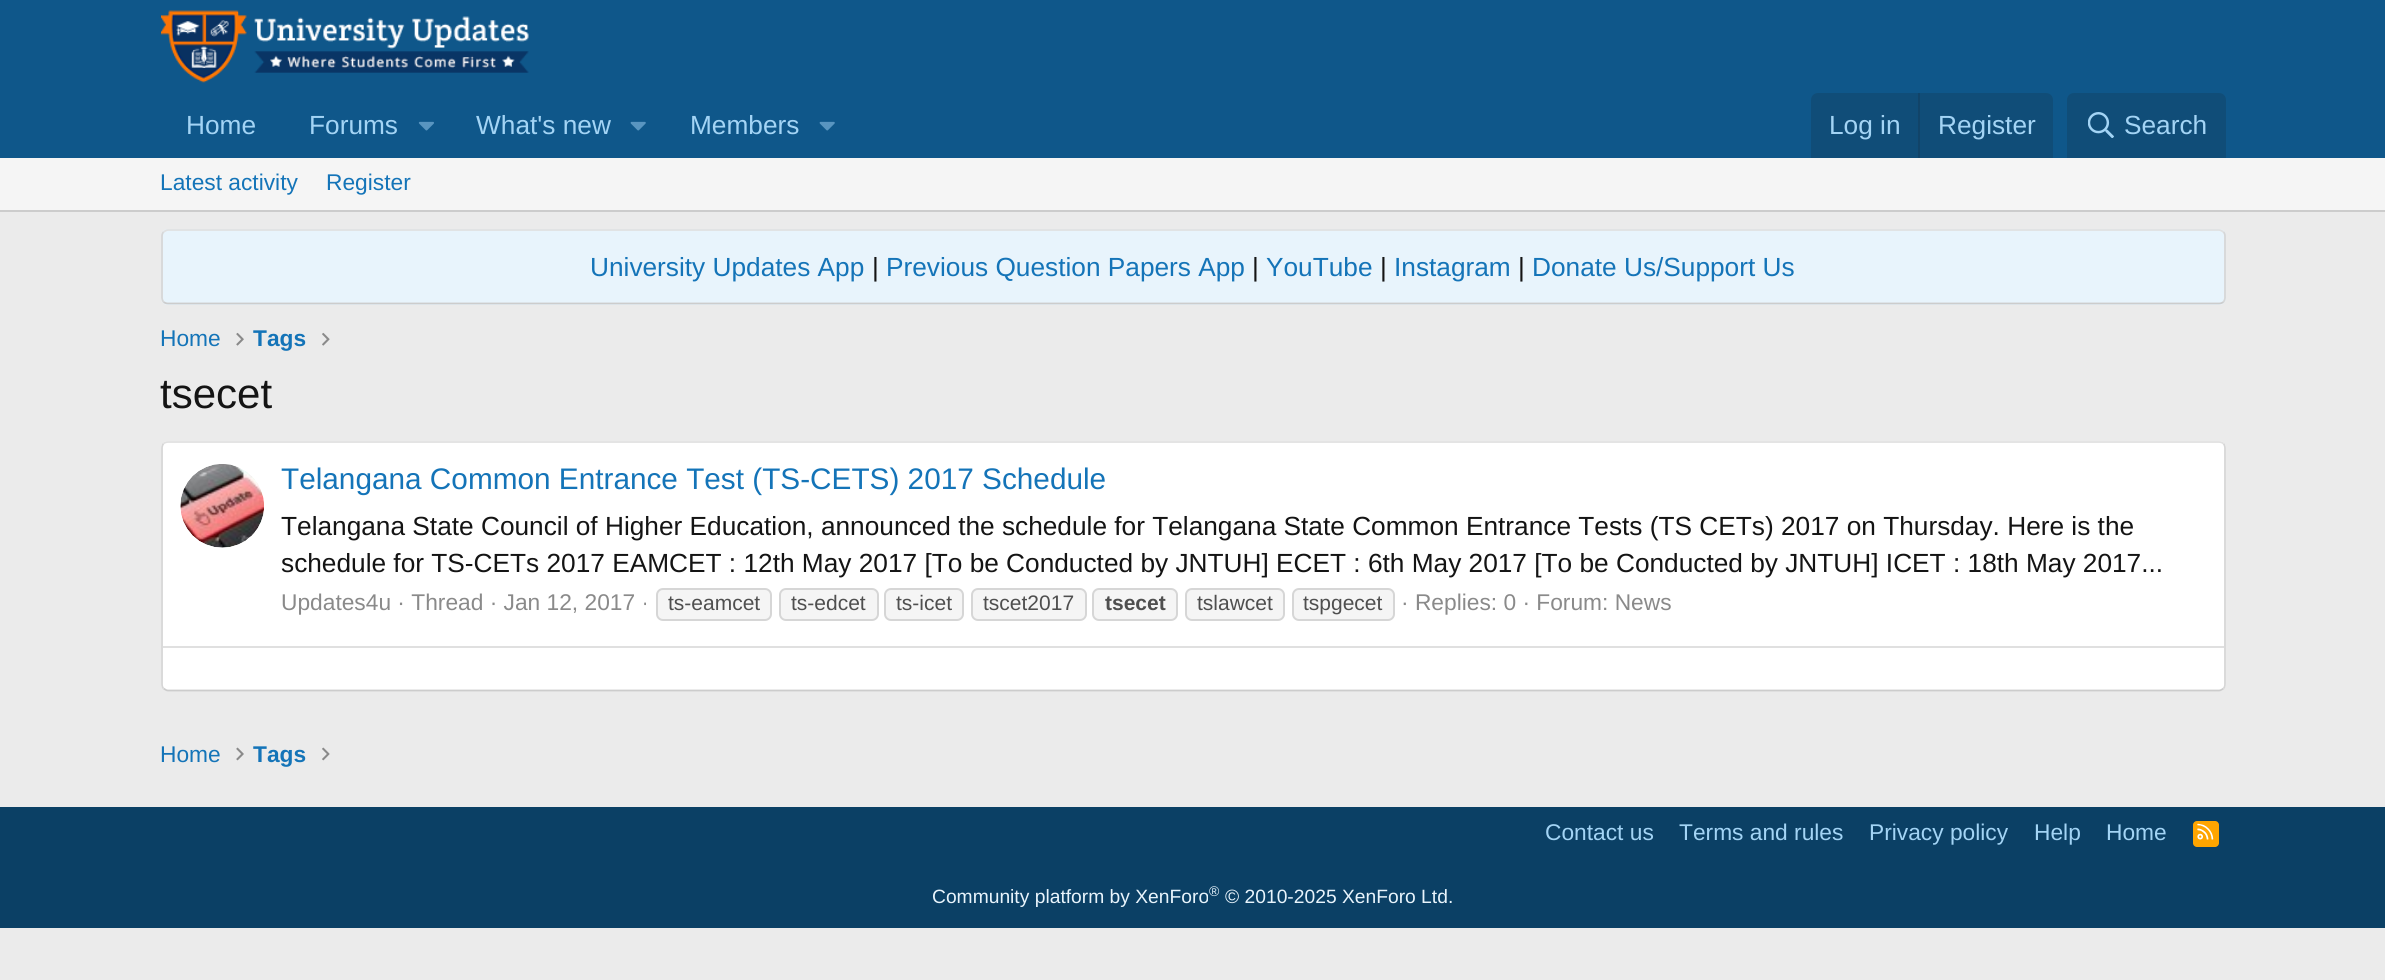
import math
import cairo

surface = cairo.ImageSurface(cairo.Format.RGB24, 2385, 980)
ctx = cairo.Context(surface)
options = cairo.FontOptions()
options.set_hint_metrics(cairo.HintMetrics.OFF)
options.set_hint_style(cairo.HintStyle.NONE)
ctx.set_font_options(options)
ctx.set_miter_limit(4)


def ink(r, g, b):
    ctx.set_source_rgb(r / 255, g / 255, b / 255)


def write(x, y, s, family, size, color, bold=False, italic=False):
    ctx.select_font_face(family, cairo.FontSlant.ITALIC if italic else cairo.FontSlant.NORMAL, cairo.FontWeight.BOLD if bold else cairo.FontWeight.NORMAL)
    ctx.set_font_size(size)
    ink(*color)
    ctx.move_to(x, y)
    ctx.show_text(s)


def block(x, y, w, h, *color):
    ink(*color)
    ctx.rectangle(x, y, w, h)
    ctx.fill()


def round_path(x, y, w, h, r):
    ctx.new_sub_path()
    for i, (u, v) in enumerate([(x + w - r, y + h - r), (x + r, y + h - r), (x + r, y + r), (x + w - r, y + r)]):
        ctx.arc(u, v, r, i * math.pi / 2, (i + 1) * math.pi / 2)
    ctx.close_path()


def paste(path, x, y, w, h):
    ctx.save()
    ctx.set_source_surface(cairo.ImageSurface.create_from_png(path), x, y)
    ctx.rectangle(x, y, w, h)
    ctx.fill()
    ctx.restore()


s1 = dict(family="Liberation Sans", size=26.25, color=(163, 212, 245))
s2 = dict(family="Liberation Sans", size=22.75, color=(20, 116, 184))
s3 = dict(family="Liberation Sans", size=26.25, color=(20, 116, 184))
s4 = dict(family="Liberation Sans", size=26.25, color=(20, 20, 20))
s5 = dict(family="Liberation Sans", size=22.75, color=(20, 116, 184), bold=True)
s6 = dict(family="Liberation Sans", size=42, color=(20, 20, 20))
s7 = dict(family="Liberation Sans", size=29.75, color=(20, 116, 184))
s8 = dict(family="Liberation Sans", size=22.75, color=(138, 138, 138))
s9 = dict(family="Liberation Sans", size=21, color=(79, 79, 79))
s10 = dict(family="Liberation Sans", size=21, color=(79, 79, 79), bold=True)
s11 = dict(family="Liberation Sans", size=22.75, color=(163, 212, 245))
s12 = dict(family="Liberation Sans", size=19.25, color=(232, 244, 252))
s13 = dict(family="Liberation Sans", size=14, color=(232, 244, 252))

ink(235, 235, 235)
ctx.paint()
block(0, 0, 2385, 158, 15, 87, 138)
paste("pic1.png", 161, 10, 368, 73)
write(186, 134, "Home", **s1)
write(309, 134, "Forums", **s1)
paste("pic2.png", 418, 121, 16, 10)
write(476, 134, "What's new", **s1)
paste("pic3.png", 630, 121, 16, 10)
write(690, 134, "Members", **s1)
paste("pic3.png", 819, 121, 16, 10)
ink(16, 77, 120)
ctx.new_path()
ctx.move_to(1818, 93)
ctx.line_to(2046, 93)
ctx.curve_to(2050, 93, 2053, 96, 2053, 100)
ctx.line_to(2053, 158)
ctx.line_to(1811, 158)
ctx.line_to(1811, 100)
ctx.curve_to(1811, 96, 1814, 93, 1818, 93)
ctx.close_path()
ctx.fill()
write(1829, 134, "Log in", **s1)
block(1918, 93, 2, 65, 17, 68, 105)
write(1938, 134, "Register", **s1)
ink(16, 77, 120)
ctx.new_path()
ctx.move_to(2074, 93)
ctx.line_to(2219, 93)
ctx.curve_to(2223, 93, 2226, 96, 2226, 100)
ctx.line_to(2226, 158)
ctx.line_to(2067, 158)
ctx.line_to(2067, 100)
ctx.curve_to(2067, 96, 2070, 93, 2074, 93)
ctx.close_path()
ctx.fill()
paste("pic4.png", 2088, 112, 26, 26)
write(2124, 134, "Search", **s1)
block(0, 158, 2385, 52, 245, 245, 245)
block(0, 210, 2385, 2, 204, 204, 204)
write(160, 190, "Latest activity", **s2)
write(326, 190, "Register", **s2)
ink(232, 244, 252)
round_path(161, 229, 2065, 76, 7)
ctx.fill()
ctx.new_path()
ctx.move_to(163.5, 232)
ctx.curve_to(165, 231, 166.5, 230, 168, 230)
ctx.line_to(2219, 230)
ctx.curve_to(2220.5, 230, 2222, 231, 2223.5, 232)
ink(224, 224, 224)
ctx.set_line_width(1.8)
ctx.stroke()
ctx.new_path()
ctx.move_to(2223.5, 232)
ctx.curve_to(2224.5, 233, 2225, 234.5, 2225, 236)
ctx.line_to(2225, 297.5)
ctx.curve_to(2225, 299, 2224.5, 300.5, 2223.5, 302)
ink(214, 214, 214)
ctx.stroke()
ctx.new_path()
ctx.move_to(2223.5, 302)
ctx.curve_to(2222, 303, 2220.5, 303.5, 2219, 303.5)
ctx.line_to(168, 303.5)
ctx.curve_to(166.5, 303.5, 165, 303, 163.5, 302)
ink(204, 204, 204)
ctx.stroke()
ctx.new_path()
ctx.move_to(163.5, 302)
ctx.curve_to(162.5, 300.5, 162, 299, 162, 297.5)
ctx.line_to(162, 236)
ctx.curve_to(162, 234.5, 162.5, 233, 163.5, 232)
ink(214, 214, 214)
ctx.stroke()
write(590, 276, "University Updates App", **s3)
write(872, 276, "|", **s4)
write(886, 276, "Previous Question Papers App", **s3)
write(1252, 276, "|", **s4)
write(1266, 276, "YouTube", **s3)
write(1380, 276, "|", **s4)
write(1394, 276, "Instagram", **s3)
write(1518, 276, "|", **s4)
write(1532, 276, "Donate Us/Support Us", **s3)
write(160, 346, "Home", **s2)
paste("pic5.png", 236, 332, 8, 14)
write(253, 346, "Tags", **s5)
paste("pic6.png", 322, 332, 8, 14)
write(160, 408, "tsecet", **s6)
ink(255, 255, 255)
round_path(161, 441, 2065, 250, 7)
ctx.fill()
ctx.new_path()
ctx.move_to(163.5, 443.5)
ctx.curve_to(165, 442.5, 166.5, 442, 168, 442)
ctx.line_to(2219, 442)
ctx.curve_to(2220.5, 442, 2222, 442.5, 2223.5, 443.5)
ink(224, 224, 224)
ctx.stroke()
ctx.new_path()
ctx.move_to(2223.5, 443.5)
ctx.curve_to(2224.5, 445, 2225, 446.5, 2225, 448)
ctx.line_to(2225, 684)
ctx.curve_to(2225, 686, 2224.5, 687.5, 2223.5, 688.5)
ink(214, 214, 214)
ctx.stroke()
ctx.new_path()
ctx.move_to(2223.5, 688.5)
ctx.curve_to(2222, 689.5, 2220.5, 690.5, 2219, 690.5)
ctx.line_to(168, 690.5)
ctx.curve_to(166.5, 690.5, 165, 689.5, 163.5, 688.5)
ink(204, 204, 204)
ctx.stroke()
ctx.new_path()
ctx.move_to(163.5, 688.5)
ctx.curve_to(162.5, 687.5, 162, 686, 162, 684)
ctx.line_to(162, 448)
ctx.curve_to(162, 446.5, 162.5, 445, 163.5, 443.5)
ink(214, 214, 214)
ctx.stroke()
paste("pic7.png", 180, 464, 84, 84)
write(281, 489, "Telangana Common Entrance Test (TS-CETS) 2017 Schedule", **s7)
write(281, 535, "Telangana State Council of Higher Education, announced the schedule for Telangana State Common Entrance Tests (TS CETs) 2017 on Thursday. Here is the", **s4)
write(281, 572, "schedule for TS-CETs 2017 EAMCET : 12th May 2017 [To be Conducted by JNTUH] ECET : 6th May 2017 [To be Conducted by JNTUH] ICET : 18th May 2017...", **s4)
write(281, 610, "Updates4u · Thread · Jan 12, 2017 ·", **s8)
ink(245, 245, 245)
round_path(657, 589, 114, 31, 6)
ctx.fill_preserve()
ink(214, 214, 214)
ctx.set_line_width(2)
ctx.stroke()
write(668, 610, "ts-eamcet", **s9)
ink(245, 245, 245)
round_path(780, 589, 98, 31, 6)
ctx.fill_preserve()
ink(214, 214, 214)
ctx.stroke()
write(791, 610, "ts-edcet", **s9)
ink(245, 245, 245)
round_path(885, 589, 78, 31, 6)
ctx.fill_preserve()
ink(214, 214, 214)
ctx.stroke()
write(896, 610, "ts-icet", **s9)
ink(245, 245, 245)
round_path(972, 589, 114, 31, 6)
ctx.fill_preserve()
ink(214, 214, 214)
ctx.stroke()
write(983, 610, "tscet2017", **s9)
ink(245, 245, 245)
round_path(1093, 589, 84, 31, 6)
ctx.fill_preserve()
ink(214, 214, 214)
ctx.stroke()
write(1105, 610, "tsecet", **s10)
ink(245, 245, 245)
round_path(1186, 589, 98, 31, 6)
ctx.fill_preserve()
ink(214, 214, 214)
ctx.stroke()
write(1197, 610, "tslawcet", **s9)
ink(245, 245, 245)
round_path(1293, 589, 101, 31, 6)
ctx.fill_preserve()
ink(214, 214, 214)
ctx.stroke()
write(1303, 610, "tspgecet", **s9)
write(1401, 610, "· Replies: 0 · Forum: News", **s8)
block(163, 646, 2061, 2, 224, 224, 224)
write(160, 762, "Home", **s2)
paste("pic8.png", 236, 747, 8, 14)
write(253, 762, "Tags", **s5)
paste("pic9.png", 322, 747, 8, 14)
block(0, 807, 2385, 121, 11, 64, 101)
write(1545, 840, "Contact us", **s11)
write(1679, 840, "Terms and rules", **s11)
write(1869, 840, "Privacy policy", **s11)
write(2034, 840, "Help", **s11)
write(2106, 840, "Home", **s11)
ink(255, 165, 0)
round_path(2193, 821, 26, 26, 4)
ctx.fill()
paste("pic10.png", 2197, 823, 17, 17)
write(932, 903, "Community platform by XenForo", **s12)
write(1209, 896, "®", **s13)
write(1225, 903, "© 2010-2025 XenForo Ltd.", **s12)
surface.write_to_png("screenshot.png")
